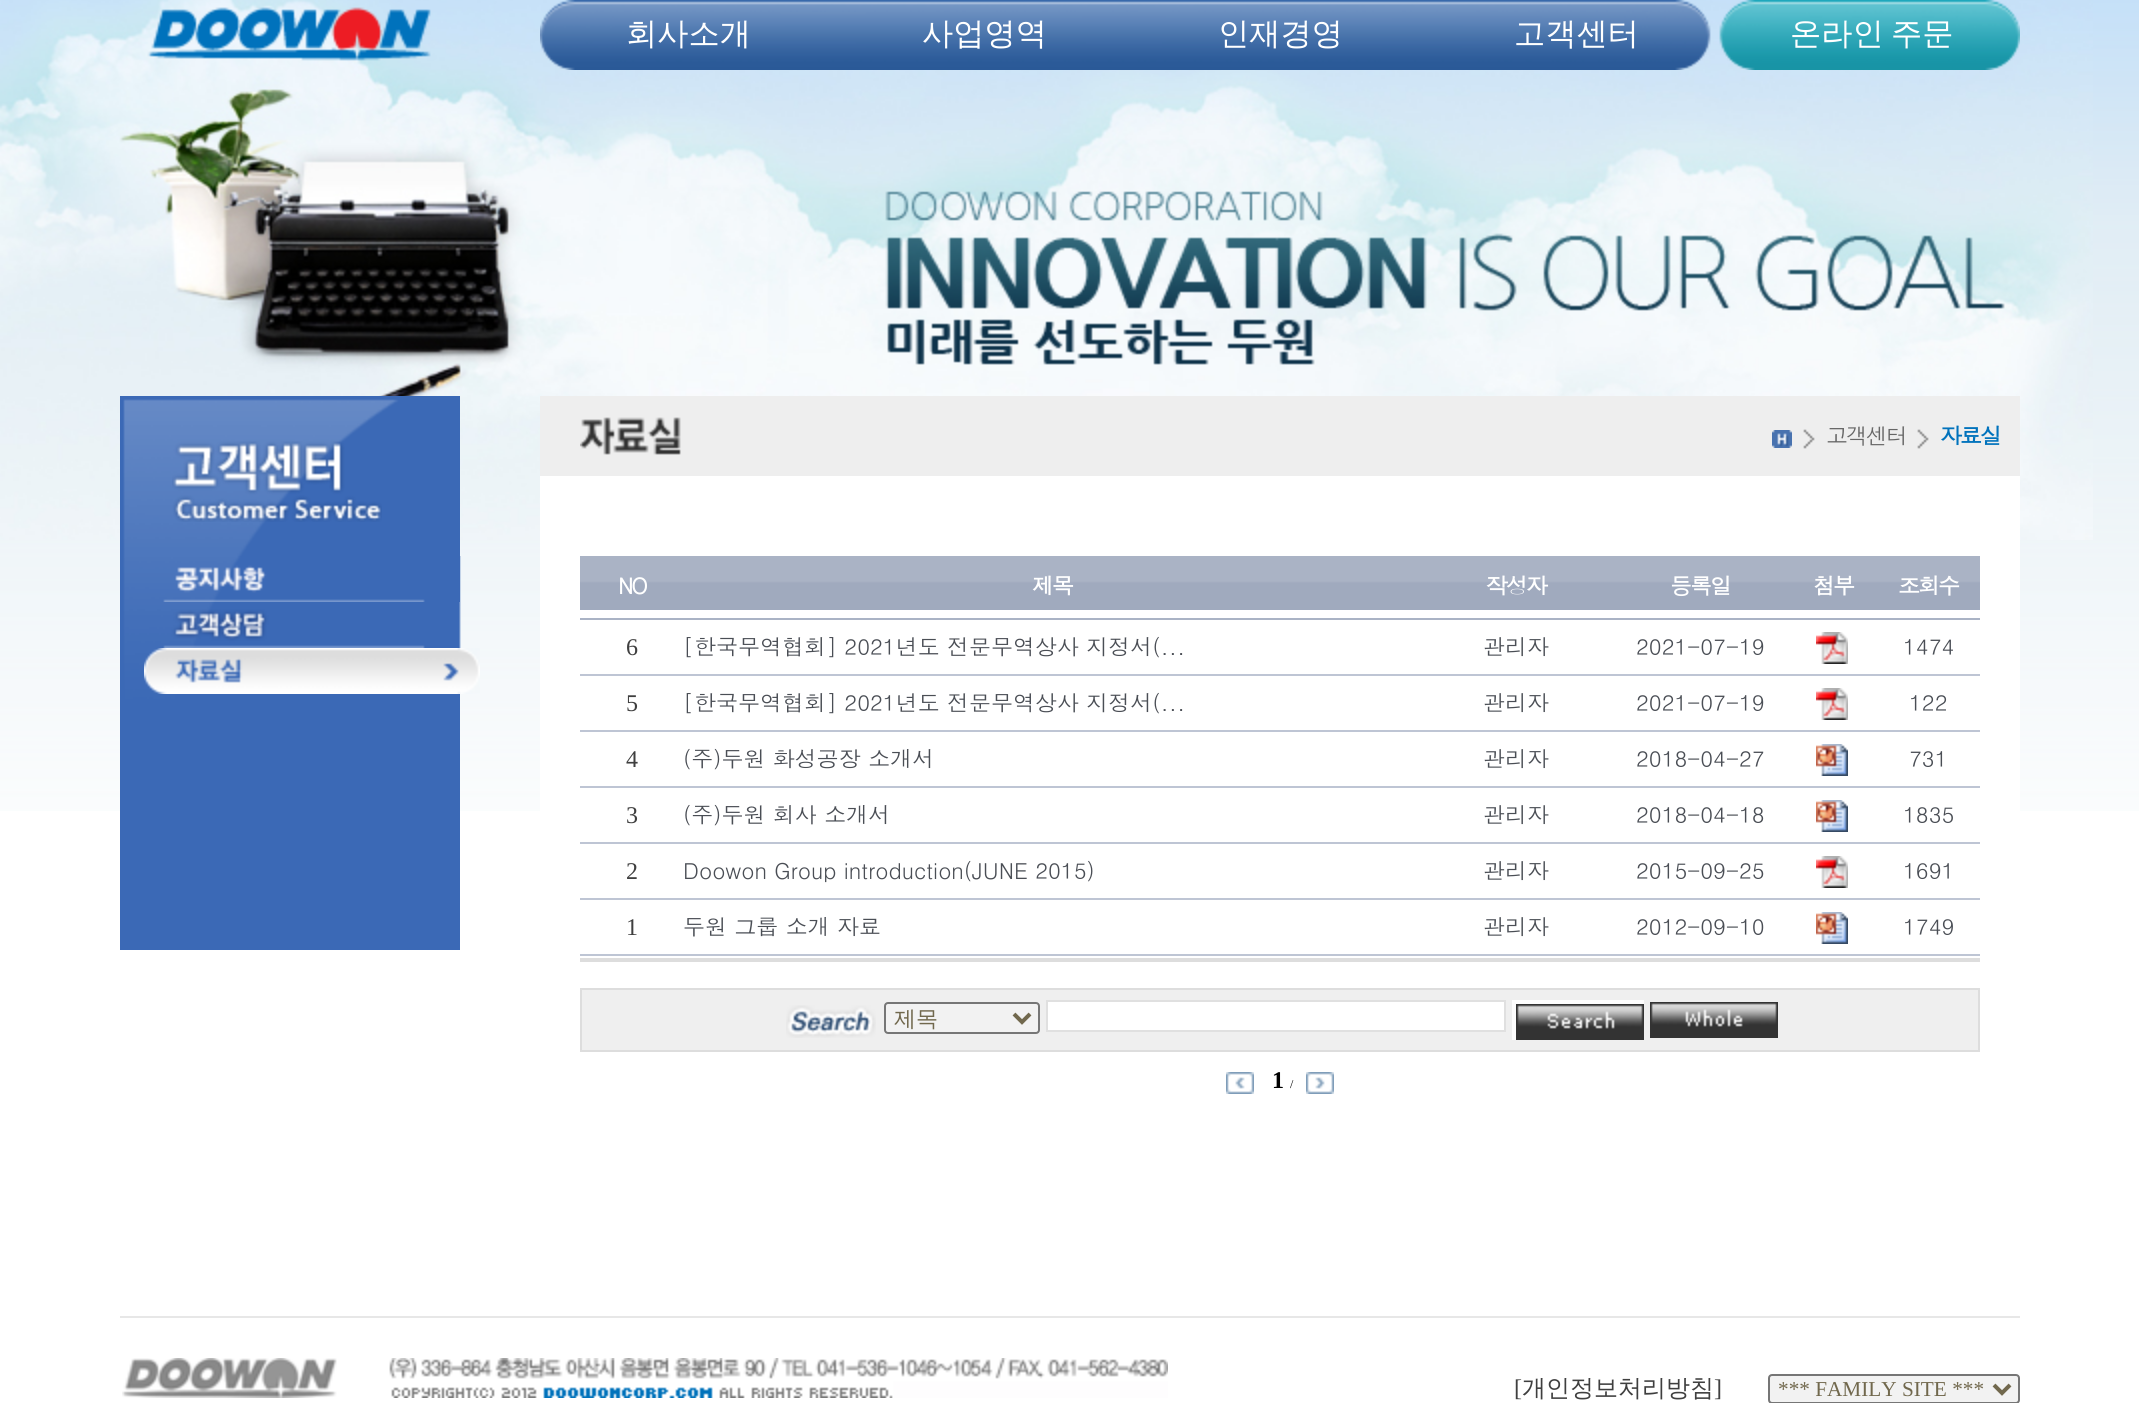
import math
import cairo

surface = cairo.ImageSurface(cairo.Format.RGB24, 2139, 1403)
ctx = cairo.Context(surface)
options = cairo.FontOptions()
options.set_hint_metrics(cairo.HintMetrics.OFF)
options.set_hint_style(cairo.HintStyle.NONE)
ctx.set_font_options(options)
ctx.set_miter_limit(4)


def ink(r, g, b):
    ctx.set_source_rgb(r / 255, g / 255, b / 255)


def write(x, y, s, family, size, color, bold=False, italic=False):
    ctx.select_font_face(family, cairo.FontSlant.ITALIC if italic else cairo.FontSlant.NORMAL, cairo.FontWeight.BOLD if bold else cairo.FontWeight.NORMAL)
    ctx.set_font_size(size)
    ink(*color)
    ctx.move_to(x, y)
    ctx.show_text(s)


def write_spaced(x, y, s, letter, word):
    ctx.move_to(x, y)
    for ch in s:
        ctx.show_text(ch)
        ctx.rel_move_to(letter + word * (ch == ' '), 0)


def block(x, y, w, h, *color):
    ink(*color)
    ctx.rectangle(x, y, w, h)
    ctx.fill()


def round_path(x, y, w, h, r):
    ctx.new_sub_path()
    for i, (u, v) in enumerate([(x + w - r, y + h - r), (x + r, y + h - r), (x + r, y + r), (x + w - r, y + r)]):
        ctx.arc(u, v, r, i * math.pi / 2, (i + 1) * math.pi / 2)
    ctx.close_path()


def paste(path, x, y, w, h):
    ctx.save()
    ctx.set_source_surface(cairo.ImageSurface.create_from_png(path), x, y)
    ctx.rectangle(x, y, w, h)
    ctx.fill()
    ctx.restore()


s1 = dict(family="WenQuanYi Zen Hei Medium", size=31.25, color=(255, 255, 255))
s2 = dict(family="Liberation Serif", size=24, color=(63, 63, 63))
s3 = dict(family="Dotum", size=22, color=(74, 78, 85))
s4 = dict(family="WenQuanYi Zen Hei Medium", size=22, color=(113, 104, 77))
s5 = dict(family="Liberation Serif", size=24, color=(0, 0, 0), bold=True)
s6 = dict(family="Liberation Serif", size=12, color=(0, 0, 0))
s7 = dict(family="WenQuanYi Zen Hei Medium", size=24, color=(63, 63, 63))
s8 = dict(family="Liberation Serif", size=21.25, color=(113, 104, 77))

ink(255, 255, 255)
ctx.paint()
paste("pic1.png", 0, 0, 2139, 811)
paste("pic2.png", 0, 0, 2093, 540)
paste("pic3.png", 147, 7, 284, 54)
paste("pic4.png", 540, 0, 1480, 70)
write(626, 44, "회사소개", **s1)
write(922, 44, "사업영역", **s1)
write(1218, 44, "인재경영", **s1)
write(1514, 44, "고객센터", **s1)
write_spaced(1790, 44, "온라인 주문", 0, -2)
paste("pic5.png", 120, 396, 340, 554)
paste("pic6.png", 172, 441, 210, 81)
paste("pic7.png", 163, 556, 298, 46)
paste("pic8.png", 163, 602, 298, 46)
paste("pic9.png", 144, 648, 336, 46)
paste("pic10.png", 885, 191, 1120, 174)
block(540, 396, 1480, 80, 238, 238, 238)
paste("pic11.png", 580, 417, 101, 38)
paste("pic12.png", 1772, 430, 20, 18)
paste("pic13.png", 1803, 429, 12, 20)
ctx.select_font_face("Dotum")
ctx.set_font_size(22)
ink(102, 102, 102)
write_spaced(1826, 444, "고객센터", -2, 0)
paste("pic13.png", 1917, 429, 12, 20)
ctx.select_font_face("Dotum", cairo.FontSlant.NORMAL, cairo.FontWeight.BOLD)
ink(0, 114, 188)
write_spaced(1940, 444, "자료실", -2, 0)
block(540, 476, 1480, 335, 255, 255, 255)
paste("pic14.png", 580, 556, 104, 54)
write_spaced(618, 594, "NO", -2, 0)
paste("pic15.png", 684, 556, 736, 54)
write_spaced(1032, 594, "제목", -2, 0)
paste("pic16.png", 1420, 556, 192, 54)
write_spaced(1486, 594, "작성자", -2, 0)
paste("pic17.png", 1612, 556, 176, 54)
write_spaced(1670, 594, "등록일", -2, 0)
paste("pic18.png", 1788, 556, 88, 54)
write_spaced(1813, 594, "첨부", -2, 0)
paste("pic19.png", 1876, 556, 104, 54)
write_spaced(1898, 594, "조회수", -2, 0)
block(580, 618, 1400, 2, 170, 179, 197)
write(626, 655, "6", **s2)
write(683, 655, "[한국무역협회] 2021년도 전문무역상사 지정서(...", **s3)
write(1483, 655, "관리자", **s3)
write(1636, 655, "2021-07-19", **s3)
paste("pic20.png", 1816, 632, 32, 32)
write(1903, 655, "1474", **s3)
block(580, 674, 1400, 2, 190, 197, 212)
write(626, 711, "5", **s2)
write(683, 711, "[한국무역협회] 2021년도 전문무역상사 지정서(...", **s3)
write(1483, 711, "관리자", **s3)
write(1636, 711, "2021-07-19", **s3)
paste("pic20.png", 1816, 688, 32, 32)
write(1909, 711, "122", **s3)
block(580, 730, 1400, 2, 190, 197, 212)
write(626, 767, "4", **s2)
write(683, 767, "(주)두원 화성공장 소개서", **s3)
write(1483, 767, "관리자", **s3)
write(1636, 767, "2018-04-27", **s3)
paste("pic21.png", 1816, 744, 32, 32)
write(1909, 767, "731", **s3)
block(580, 786, 1400, 2, 190, 197, 212)
write(626, 823, "3", **s2)
write(683, 823, "(주)두원 회사 소개서", **s3)
write(1483, 823, "관리자", **s3)
write(1636, 823, "2018-04-18", **s3)
paste("pic21.png", 1816, 800, 32, 32)
write(1903, 823, "1835", **s3)
block(580, 842, 1400, 2, 190, 197, 212)
write(626, 879, "2", **s2)
write(683, 879, "Doowon Group introduction(JUNE 2015)", **s3)
write(1483, 879, "관리자", **s3)
write(1636, 879, "2015-09-25", **s3)
paste("pic20.png", 1816, 856, 32, 32)
write(1903, 879, "1691", **s3)
block(580, 898, 1400, 2, 190, 197, 212)
write(626, 935, "1", **s2)
write(683, 935, "두원 그룹 소개 자료", **s3)
write(1483, 935, "관리자", **s3)
write(1636, 935, "2012-09-10", **s3)
paste("pic21.png", 1816, 912, 32, 32)
write(1903, 935, "1749", **s3)
block(580, 954, 1400, 2, 190, 197, 212)
block(580, 958, 1400, 4, 221, 221, 221)
block(580, 988, 1400, 64, 221, 221, 221)
block(582, 990, 1396, 60, 239, 239, 239)
paste("pic22.png", 786, 1005, 90, 33)
ink(242, 242, 242)
round_path(885, 1003, 154, 30, 3)
ctx.fill_preserve()
ink(118, 118, 118)
ctx.stroke()
ctx.new_path()
ctx.move_to(1014, 1014)
ctx.line_to(1022, 1022)
ctx.line_to(1030, 1014)
ink(113, 104, 77)
ctx.set_line_width(4)
ctx.stroke()
write(894, 1026, "제목", **s4)
ink(255, 255, 255)
ctx.rectangle(1047, 1001, 458, 30)
ctx.fill_preserve()
ink(224, 224, 224)
ctx.set_line_width(2)
ctx.stroke()
block(1512, 1000, 132, 40, 254, 254, 254)
paste("pic23.png", 1516, 1004, 128, 36)
paste("pic24.png", 1650, 1002, 128, 36)
paste("pic25.png", 1226, 1072, 28, 22)
write(1272, 1088, "1", **s5)
write(1290, 1088, "/", **s6)
paste("pic26.png", 1306, 1072, 28, 22)
block(120, 1316, 1900, 2, 231, 231, 231)
paste("pic27.png", 122, 1358, 1046, 40)
write(1514, 1396, "[", **s2)
write(1522, 1396, "개인정보처리방침", **s7)
write(1714, 1396, "]", **s2)
ink(242, 242, 242)
round_path(1769, 1375, 250, 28, 3)
ctx.fill_preserve()
ink(118, 118, 118)
ctx.stroke()
ctx.new_path()
ctx.move_to(1994, 1385)
ctx.line_to(2002, 1393)
ctx.line_to(2010, 1385)
ink(113, 104, 77)
ctx.set_line_width(4)
ctx.stroke()
write(1778, 1396, "*** FAMILY SITE ***", **s8)
surface.write_to_png("screenshot.png")
